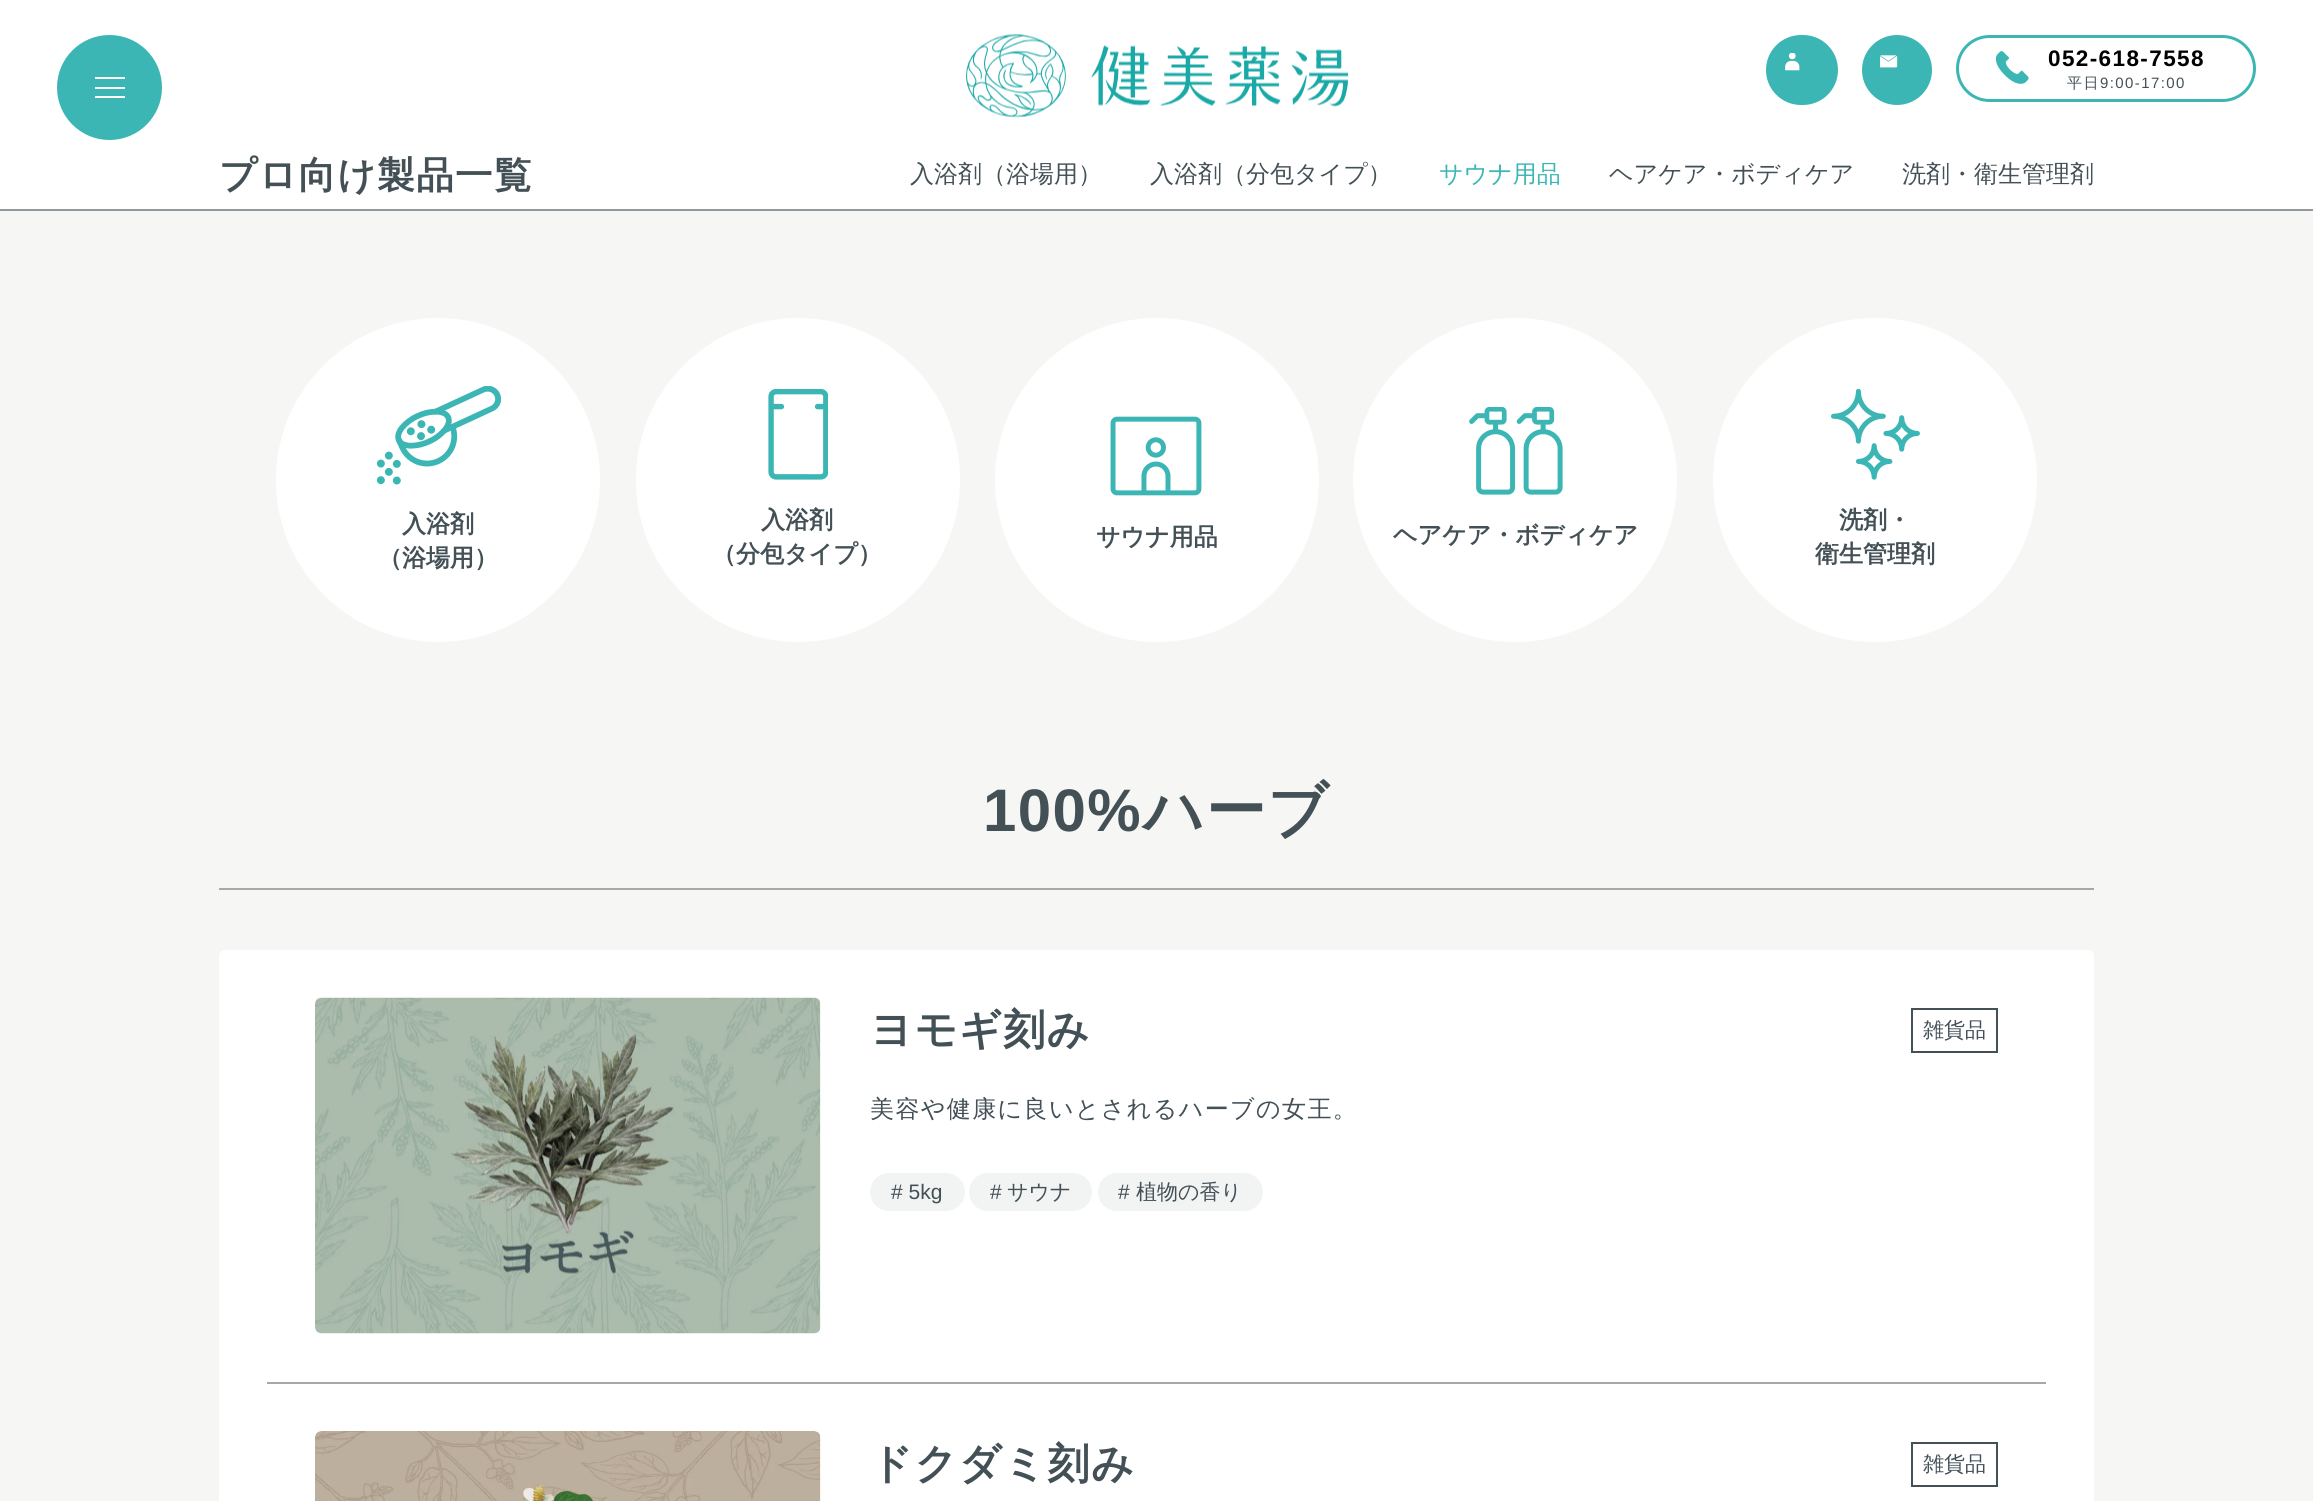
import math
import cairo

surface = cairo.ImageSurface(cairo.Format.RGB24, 2313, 1501)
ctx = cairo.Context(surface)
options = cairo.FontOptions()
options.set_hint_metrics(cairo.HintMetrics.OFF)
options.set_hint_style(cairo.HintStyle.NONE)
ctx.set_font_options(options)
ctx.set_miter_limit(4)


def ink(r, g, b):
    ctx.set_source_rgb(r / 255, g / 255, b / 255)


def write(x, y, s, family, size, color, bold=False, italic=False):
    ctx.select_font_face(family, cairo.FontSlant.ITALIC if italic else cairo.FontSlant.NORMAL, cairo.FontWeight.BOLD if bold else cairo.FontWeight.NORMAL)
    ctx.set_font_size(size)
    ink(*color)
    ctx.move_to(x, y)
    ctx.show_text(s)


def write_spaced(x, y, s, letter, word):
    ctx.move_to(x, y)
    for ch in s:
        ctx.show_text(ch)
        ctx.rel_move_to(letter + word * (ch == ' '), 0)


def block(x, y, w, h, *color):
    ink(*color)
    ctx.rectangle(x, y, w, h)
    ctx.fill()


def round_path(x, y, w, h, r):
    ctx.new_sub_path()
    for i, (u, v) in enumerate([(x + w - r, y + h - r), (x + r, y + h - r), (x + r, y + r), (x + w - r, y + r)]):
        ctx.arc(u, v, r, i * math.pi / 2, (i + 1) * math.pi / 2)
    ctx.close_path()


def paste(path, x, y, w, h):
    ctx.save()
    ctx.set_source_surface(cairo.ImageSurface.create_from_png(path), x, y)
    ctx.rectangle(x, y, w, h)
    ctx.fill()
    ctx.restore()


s1 = dict(family="WenQuanYi Zen Hei Medium", size=24, color=(67, 80, 86))
s2 = dict(family="WenQuanYi Zen Hei Medium", size=24, color=(60, 182, 180))
s3 = dict(family="WenQuanYi Zen Hei", size=24, color=(67, 80, 86), bold=True)
s4 = dict(family="WenQuanYi Zen Hei Medium", size=21, color=(67, 80, 86))
s5 = dict(family="Liberation Sans", size=21, color=(67, 80, 86))

ink(255, 255, 255)
ctx.paint()
ink(60, 182, 180)
ctx.arc(109.5, 87.5, 51, 0, 2 * math.pi)
ctx.fill_preserve()
ctx.set_line_width(3)
ctx.stroke()
block(95, 77, 30, 2, 255, 255, 255)
block(95, 87, 30, 2, 255, 255, 255)
block(95, 96, 30, 2, 255, 255, 255)
paste("pic1.png", 966, 34, 383, 84)
ink(60, 182, 180)
round_path(1766, 35, 72, 70, 35)
ctx.fill()
paste("pic2.png", 1785, 53, 15, 18)
ctx.arc(1897, 70, 35, 0, 2 * math.pi)
ctx.fill()
paste("pic3.png", 1880, 55, 18, 13)
round_path(1957.5, 36.5, 297, 64, 32)
ctx.stroke()
paste("pic4.png", 1995, 51, 34, 33)
ctx.select_font_face("Liberation Sans", cairo.FontSlant.NORMAL, cairo.FontWeight.BOLD)
ctx.set_font_size(22.5)
ink(0, 0, 0)
write_spaced(2048, 66, "052-618-7558", 1.4, 0)
ctx.select_font_face("WenQuanYi Zen Hei Medium")
ctx.set_font_size(15)
ink(67, 80, 86)
write_spaced(2067, 88, "平日", 1.4, 0)
ctx.select_font_face("Liberation Sans")
write_spaced(2100, 88, "9:00-17:00", 1.4, 0)
block(0, 209, 2313, 2, 144, 152, 155)
ctx.select_font_face("WenQuanYi Zen Hei", cairo.FontSlant.NORMAL, cairo.FontWeight.BOLD)
ctx.set_font_size(37.5)
ink(67, 80, 86)
write_spaced(219, 188, "プロ向け製品一覧", 1.4, 0)
write(910, 182, "入浴剤（浴場用）", **s1)
write(1150, 182, "入浴剤（分包タイプ）", **s1)
write(1439, 182, "サウナ用品", **s2)
write(1609, 182, "ヘアケア・ボディケア", **s1)
write(1902, 182, "洗剤・衛生管理剤", **s1)
block(0, 211, 2313, 1290, 246, 246, 244)
ink(255, 255, 255)
ctx.new_path()
ctx.arc(438, 480, 160.5, 0, 2 * math.pi)
ctx.fill_preserve()
ctx.stroke()
paste("pic5.png", 377, 386, 124, 99)
write(402, 532, "入浴剤", **s3)
write(378, 566, "（浴場用）", **s3)
ink(255, 255, 255)
ctx.new_path()
ctx.arc(798, 480, 160.5, 0, 2 * math.pi)
ctx.fill_preserve()
ctx.stroke()
paste("pic6.png", 768, 389, 60, 91)
write(761, 528, "入浴剤", **s3)
write(712, 562, "（分包タイプ）", **s3)
ink(255, 255, 255)
ctx.new_path()
ctx.arc(1157, 480, 160.5, 0, 2 * math.pi)
ctx.fill_preserve()
ctx.stroke()
paste("pic7.png", 1110, 416, 92, 80)
write(1096, 545, "サウナ用品", **s3)
ink(255, 255, 255)
ctx.new_path()
ctx.arc(1515, 480, 160.5, 0, 2 * math.pi)
ctx.fill_preserve()
ctx.stroke()
paste("pic8.png", 1469, 407, 94, 88)
write(1393, 543, "ヘアケア・ボディケア", **s3)
ink(255, 255, 255)
ctx.new_path()
ctx.arc(1875, 480, 160.5, 0, 2 * math.pi)
ctx.fill_preserve()
ctx.stroke()
paste("pic9.png", 1831, 389, 89, 91)
write(1839, 528, "洗剤・", **s3)
write(1815, 562, "衛生管理剤", **s3)
block(219, 888, 1875, 2, 168, 168, 168)
ctx.select_font_face("Liberation Sans", cairo.FontSlant.NORMAL, cairo.FontWeight.BOLD)
ctx.set_font_size(60)
ink(67, 80, 86)
write_spaced(983, 831, "100%", 1.4, 0)
ctx.select_font_face("WenQuanYi Zen Hei", cairo.FontSlant.NORMAL, cairo.FontWeight.BOLD)
write_spaced(1143, 831, "ハーブ", 1.4, 0)
ink(255, 255, 255)
round_path(219, 950, 1875, 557, 6)
ctx.fill()
block(267, 1382, 1779, 2, 168, 168, 168)
paste("pic10.png", 315, 997, 506, 337)
ctx.set_font_size(42)
ink(67, 80, 86)
write_spaced(870, 1044, "ヨモギ刻み", 1.4, 0)
ctx.rectangle(1912, 1009, 85, 43)
ctx.set_line_width(2)
ctx.stroke()
write(1923, 1037, "雑貨品", **s4)
ctx.set_font_size(24)
write_spaced(870, 1117, "美容や健康に良いとされるハーブの女王。", 1.4, 0)
ink(242, 243, 243)
round_path(870, 1173, 95, 38, 19)
ctx.fill()
write(891, 1199, "# 5kg", **s5)
ink(242, 243, 243)
round_path(969, 1173, 123, 38, 19)
ctx.fill()
write(990, 1199, "#", **s5)
write(1007, 1199, "サウナ", **s4)
ink(242, 243, 243)
round_path(1098, 1173, 165, 38, 19)
ctx.fill()
write(1118, 1199, "#", **s5)
write(1136, 1199, "植物の香り", **s4)
paste("pic11.png", 315, 1431, 506, 70)
ctx.select_font_face("WenQuanYi Zen Hei", cairo.FontSlant.NORMAL, cairo.FontWeight.BOLD)
ctx.set_font_size(42)
write_spaced(870, 1478, "ドクダミ刻み", 1.4, 0)
ctx.rectangle(1912, 1443, 85, 43)
ctx.stroke()
write(1923, 1471, "雑貨品", **s4)
surface.write_to_png("screenshot.png")
